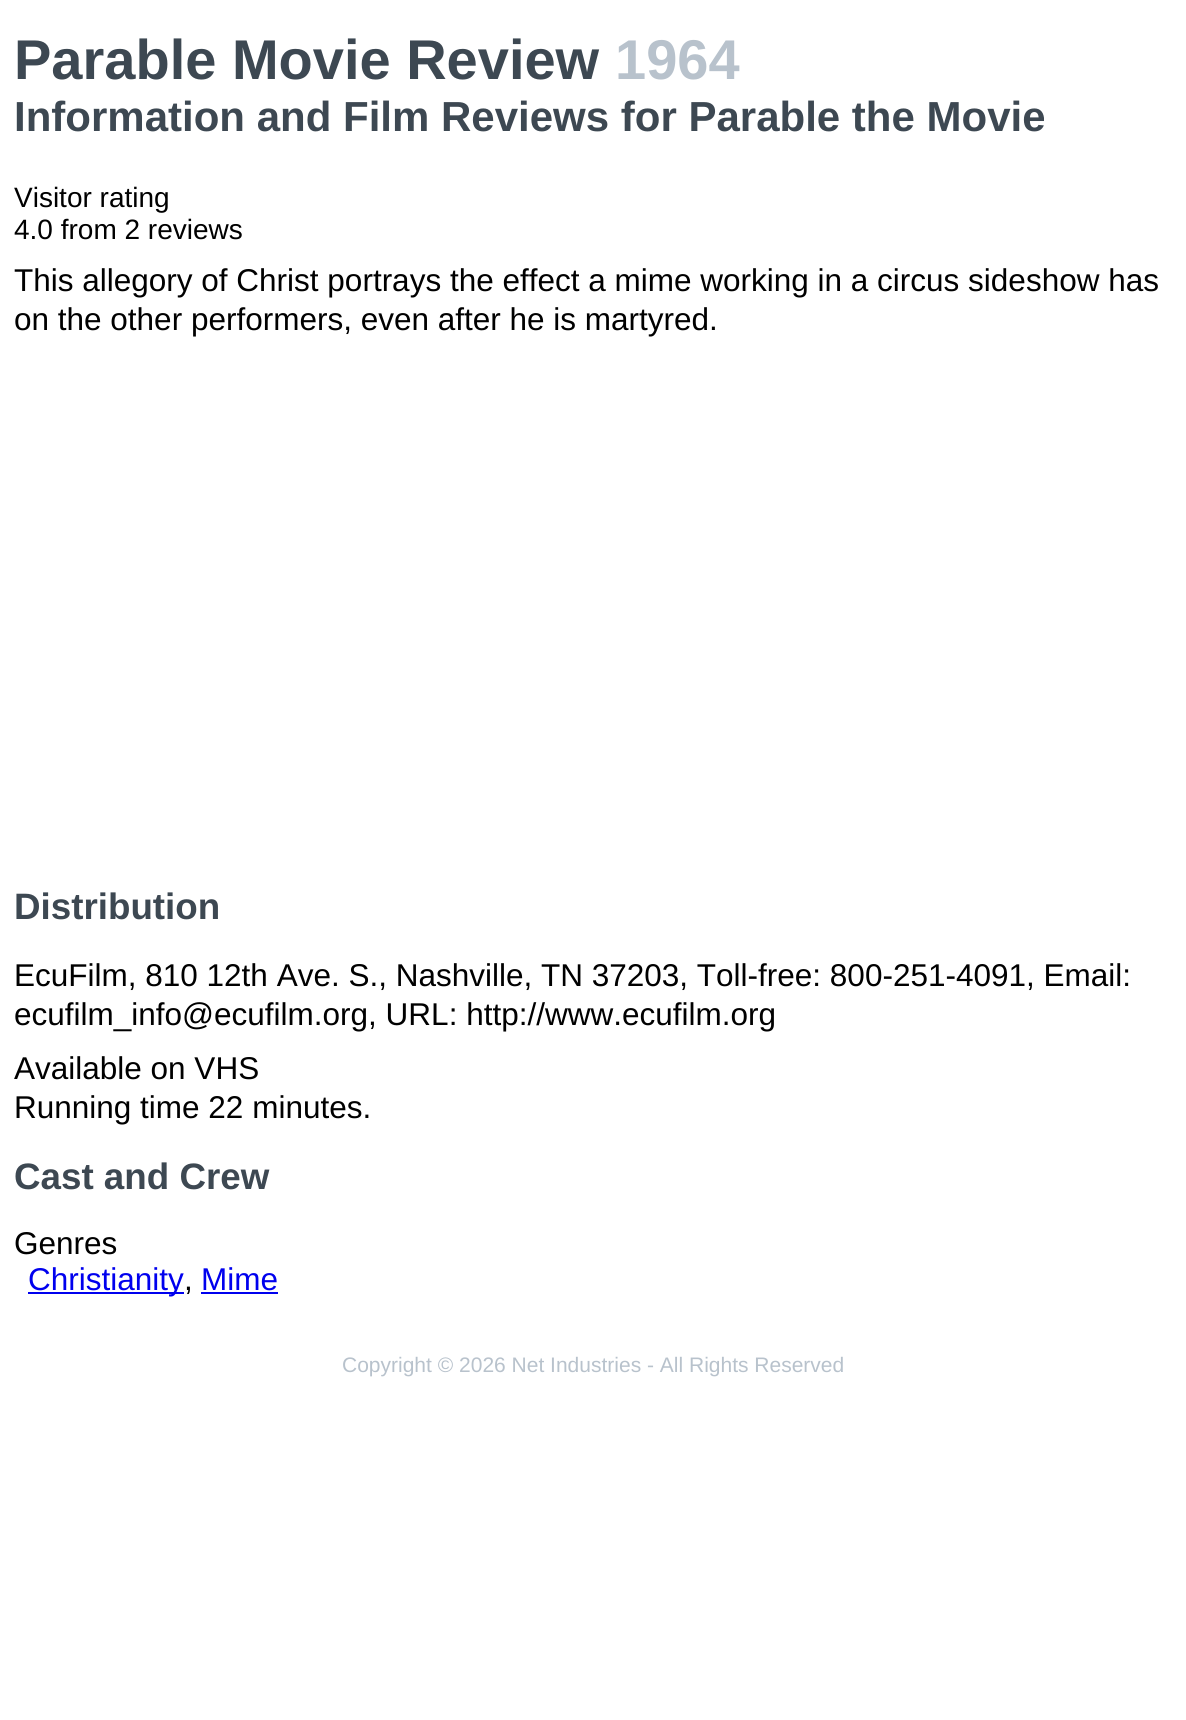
import math
import cairo

surface = cairo.ImageSurface(cairo.Format.RGB24, 1186, 1720)
ctx = cairo.Context(surface)
options = cairo.FontOptions()
options.set_hint_metrics(cairo.HintMetrics.OFF)
options.set_hint_style(cairo.HintStyle.NONE)
ctx.set_font_options(options)
ctx.set_miter_limit(4)


def ink(r, g, b):
    ctx.set_source_rgb(r / 255, g / 255, b / 255)


def write(x, y, s, family, size, color, bold=False, italic=False):
    ctx.select_font_face(family, cairo.FontSlant.ITALIC if italic else cairo.FontSlant.NORMAL, cairo.FontWeight.BOLD if bold else cairo.FontWeight.NORMAL)
    ctx.set_font_size(size)
    ink(*color)
    ctx.move_to(x, y)
    ctx.show_text(s)


def block(x, y, w, h, *color):
    ink(*color)
    ctx.rectangle(x, y, w, h)
    ctx.fill()


s1 = dict(family="Liberation Sans", size=56, color=(61, 72, 82), bold=True)
s2 = dict(family="Liberation Sans", size=56, color=(184, 194, 204), bold=True)
s3 = dict(family="Liberation Sans", size=42, color=(61, 72, 82), bold=True)
s4 = dict(family="Liberation Sans", size=28, color=(0, 0, 0))
s5 = dict(family="Liberation Sans", size=31.5, color=(0, 0, 0))
s6 = dict(family="Liberation Sans", size=36.75, color=(61, 72, 82), bold=True)
s7 = dict(family="Liberation Sans", size=31.5, color=(0, 0, 238))
s8 = dict(family="Liberation Sans", size=21, color=(184, 194, 204))

ink(255, 255, 255)
ctx.paint()
write(14, 79, "Parable Movie Review", **s1)
write(615, 79, "1964", **s2)
write(14, 131, "Information and Film Reviews for Parable the Movie", **s3)
write(14, 207, "Visitor rating", **s4)
write(14, 239, "4.0 from 2 reviews", **s4)
write(14, 291, "This allegory of Christ portrays the effect a mime working in a circus sideshow has", **s5)
write(14, 330, "on the other performers, even after he is martyred.", **s5)
write(14, 919, "Distribution", **s6)
write(14, 986, "EcuFilm, 810 12th Ave. S., Nashville, TN 37203, Toll-free: 800-251-4091, Email:", **s5)
write(14, 1025, "ecufilm_info@ecufilm.org, URL: http://www.ecufilm.org", **s5)
write(14, 1079, "Available on VHS", **s5)
write(14, 1118, "Running time 22 minutes.", **s5)
write(14, 1189, "Cast and Crew", **s6)
write(14, 1254, "Genres", **s5)
block(28, 1292, 156, 2, 0, 0, 238)
write(28, 1290, "Christianity", **s7)
write(184, 1290, ",", **s5)
write(201, 1290, "Mime", **s7)
block(201, 1292, 77, 2, 0, 0, 238)
write(342, 1372, "Copyright © 2026 Net Industries - All Rights Reserved", **s8)
surface.write_to_png("screenshot.png")
